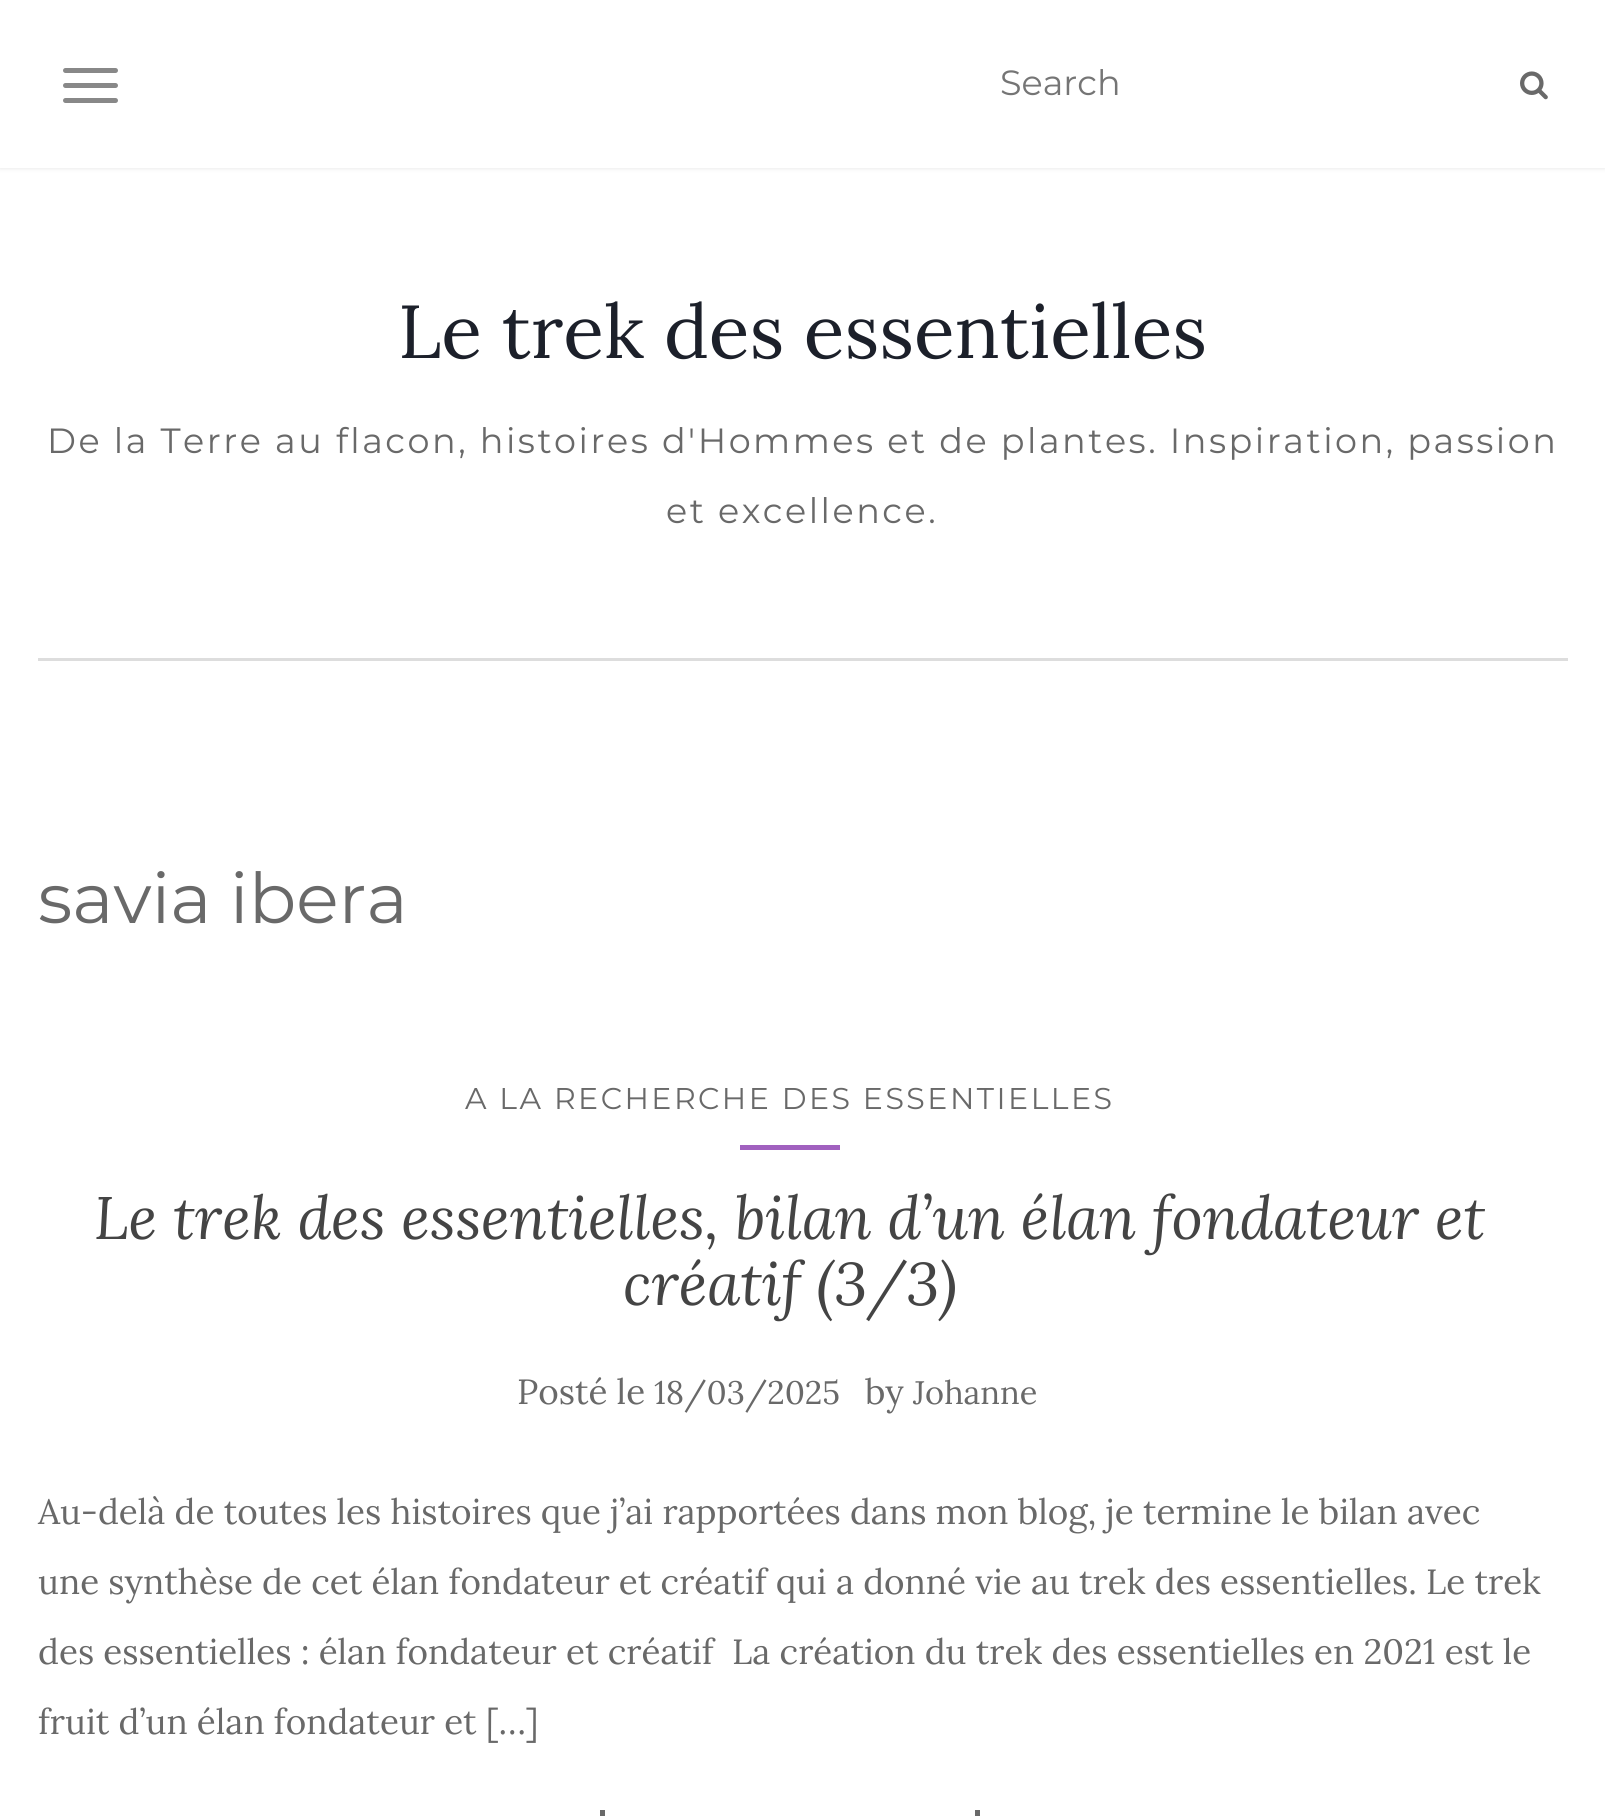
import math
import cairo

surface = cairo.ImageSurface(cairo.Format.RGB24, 1605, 1816)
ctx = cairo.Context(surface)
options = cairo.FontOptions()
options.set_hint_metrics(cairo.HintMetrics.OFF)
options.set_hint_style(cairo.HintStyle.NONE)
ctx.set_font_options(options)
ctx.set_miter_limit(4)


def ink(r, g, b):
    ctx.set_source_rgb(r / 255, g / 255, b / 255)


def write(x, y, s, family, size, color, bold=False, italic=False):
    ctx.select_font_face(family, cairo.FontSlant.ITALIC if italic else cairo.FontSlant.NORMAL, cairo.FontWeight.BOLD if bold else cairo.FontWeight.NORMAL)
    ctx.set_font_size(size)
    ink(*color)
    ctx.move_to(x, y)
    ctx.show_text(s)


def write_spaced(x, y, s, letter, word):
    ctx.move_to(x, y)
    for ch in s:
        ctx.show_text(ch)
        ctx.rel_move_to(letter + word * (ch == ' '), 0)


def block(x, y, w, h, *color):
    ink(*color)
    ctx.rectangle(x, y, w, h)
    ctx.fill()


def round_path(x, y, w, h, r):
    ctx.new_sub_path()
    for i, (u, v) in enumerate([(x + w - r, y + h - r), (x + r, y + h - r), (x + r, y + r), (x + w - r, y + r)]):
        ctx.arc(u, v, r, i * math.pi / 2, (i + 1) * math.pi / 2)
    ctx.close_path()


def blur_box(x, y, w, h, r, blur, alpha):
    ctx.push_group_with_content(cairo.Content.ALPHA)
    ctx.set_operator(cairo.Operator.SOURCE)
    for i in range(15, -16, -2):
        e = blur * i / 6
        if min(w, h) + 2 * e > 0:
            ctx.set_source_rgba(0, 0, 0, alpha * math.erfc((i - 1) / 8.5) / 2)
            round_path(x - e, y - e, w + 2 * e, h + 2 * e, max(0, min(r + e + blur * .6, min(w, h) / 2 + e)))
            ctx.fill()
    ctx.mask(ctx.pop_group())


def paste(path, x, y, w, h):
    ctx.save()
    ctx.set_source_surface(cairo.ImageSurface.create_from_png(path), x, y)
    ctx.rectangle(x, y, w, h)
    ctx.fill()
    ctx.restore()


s1 = dict(family="Montserrat", size=35, color=(117, 117, 117))
s2 = dict(family="Lora", size=75, color=(28, 32, 42))
s3 = dict(family="Montserrat", size=70, color=(105, 105, 105))
s4 = dict(family="Lora", size=60, color=(68, 68, 68), italic=True)
s5 = dict(family="Lora", size=35, color=(105, 105, 105))
s6 = dict(family="Lora", size=32.5, color=(105, 105, 105))

ink(255, 255, 255)
ctx.paint()
ink(227, 227, 227)
blur_box(0, 0, 1605, 168, 0, 2.5, 1)
block(0, 0, 1605, 168, 255, 255, 255)
ink(136, 136, 136)
round_path(63, 68, 55, 5, 2.5)
ctx.fill()
round_path(63, 83, 55, 5, 2.5)
ctx.fill()
round_path(63, 98, 55, 5, 2.5)
ctx.fill()
write(1000, 95, "Search", **s1)
paste("pic1.png", 1520, 71, 28, 29)
write(398, 358, "Le trek des essentielles", **s2)
ctx.select_font_face("Montserrat")
ctx.set_font_size(35)
ink(105, 105, 105)
write_spaced(47, 453, "De la Terre au flacon, histoires d'Hommes et de plantes. Inspiration, passion", 2.5, 0)
write_spaced(666, 523, "et excellence.", 2.5, 0)
block(38, 658, 1530, 3, 221, 221, 221)
write(38, 923, "savia ibera", **s3)
ctx.set_font_size(30)
write_spaced(465, 1109, "A LA RECHERCHE DES ESSENTIELLES", 2.5, 0)
block(740, 1145, 100, 5, 161, 97, 191)
write(94, 1239, "Le trek des essentielles, bilan d’un élan fondateur et", **s4)
write(623, 1305, "créatif (3/3)", **s4)
write(517, 1404, "Posté le", **s5)
write(654, 1404, "18/03/2025", **s6)
write(865, 1404, "by", **s5)
write(913, 1404, "Johanne", **s6)
write(38, 1524, "Au-delà de toutes les histoires que j’ai rapportées dans mon blog, je termine le bilan avec", **s5)
write(38, 1594, "une synthèse de cet élan fondateur et créatif qui a donné vie au trek des essentielles. Le trek", **s5)
write(38, 1664, "des essentielles : élan fondateur et créatif  La création du trek des essentielles en 2021 est le", **s5)
write(38, 1734, "fruit d’un élan fondateur et […]", **s5)
block(975, 1810, 5, 6, 105, 105, 105)
block(600, 1810, 5, 6, 105, 105, 105)
surface.write_to_png("screenshot.png")
